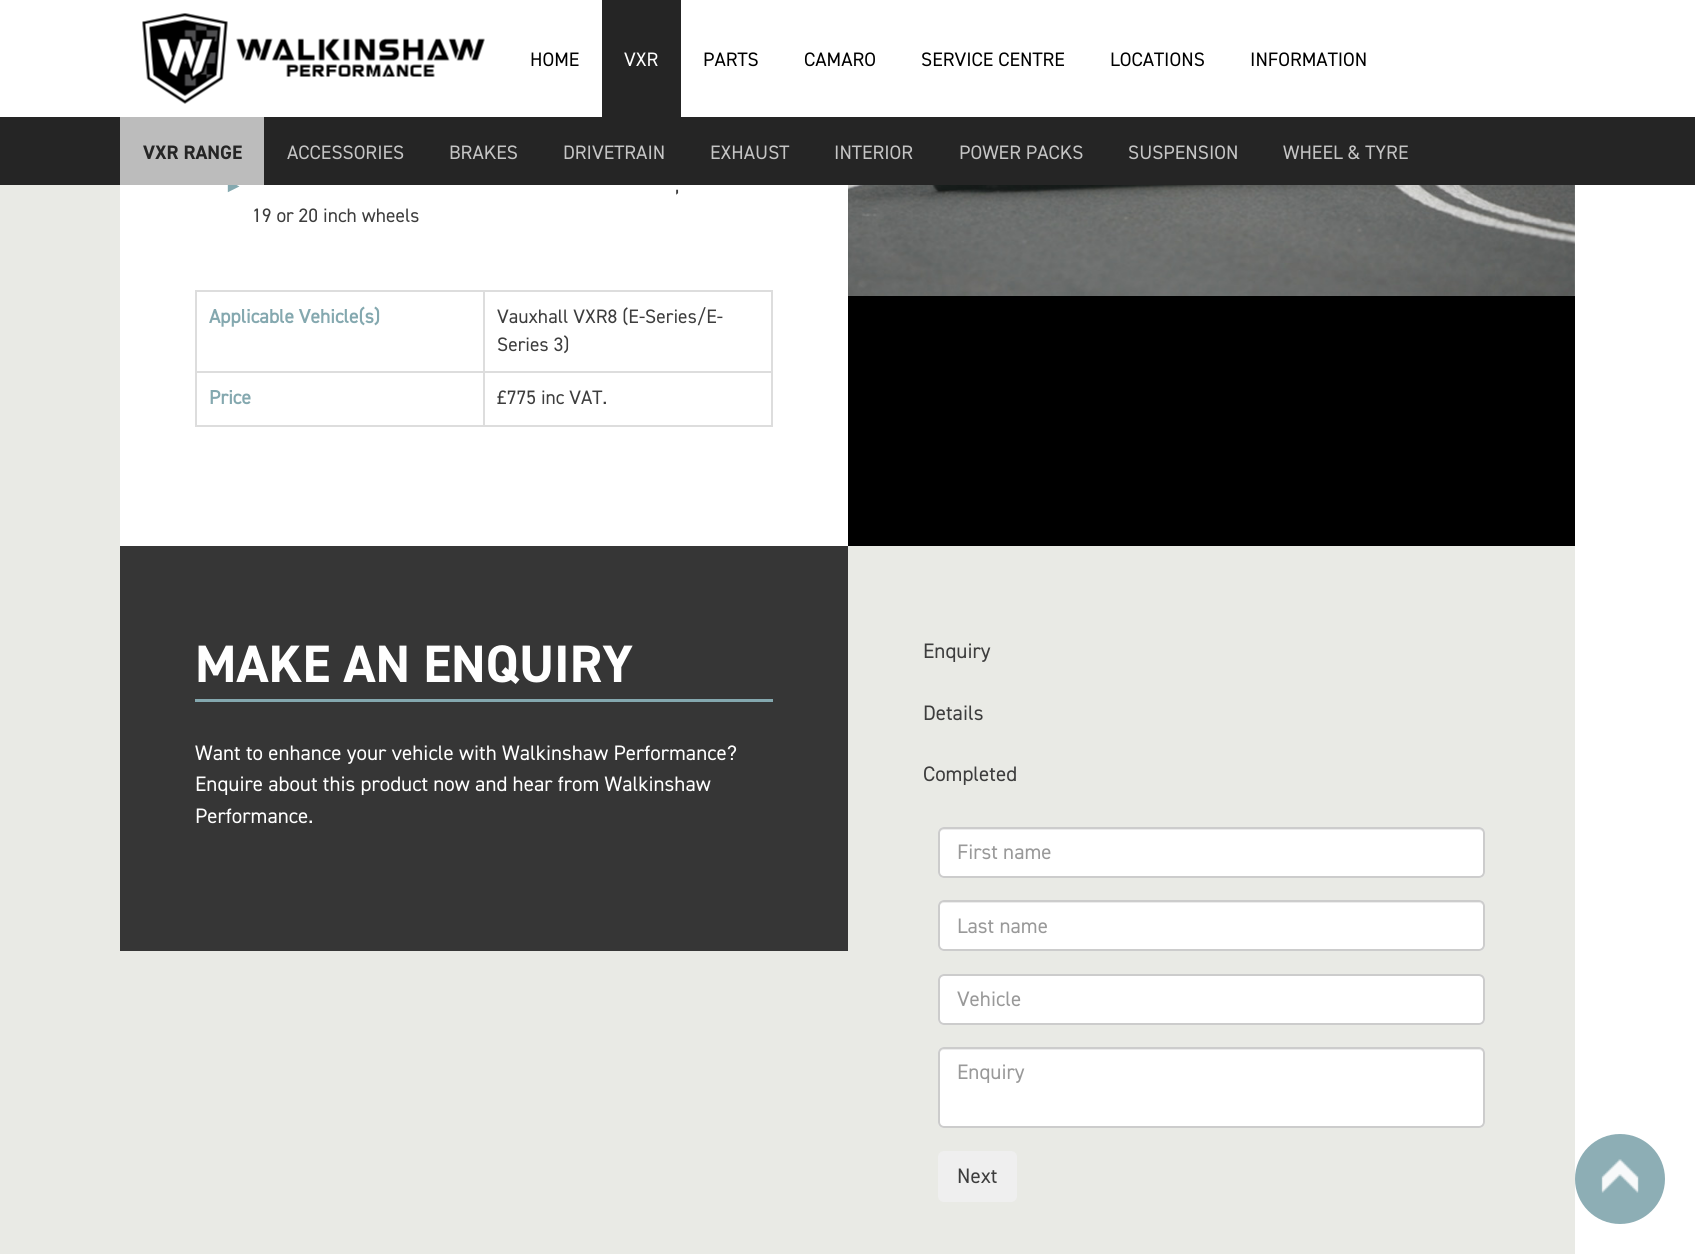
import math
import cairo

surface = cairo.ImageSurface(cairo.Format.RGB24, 1695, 1254)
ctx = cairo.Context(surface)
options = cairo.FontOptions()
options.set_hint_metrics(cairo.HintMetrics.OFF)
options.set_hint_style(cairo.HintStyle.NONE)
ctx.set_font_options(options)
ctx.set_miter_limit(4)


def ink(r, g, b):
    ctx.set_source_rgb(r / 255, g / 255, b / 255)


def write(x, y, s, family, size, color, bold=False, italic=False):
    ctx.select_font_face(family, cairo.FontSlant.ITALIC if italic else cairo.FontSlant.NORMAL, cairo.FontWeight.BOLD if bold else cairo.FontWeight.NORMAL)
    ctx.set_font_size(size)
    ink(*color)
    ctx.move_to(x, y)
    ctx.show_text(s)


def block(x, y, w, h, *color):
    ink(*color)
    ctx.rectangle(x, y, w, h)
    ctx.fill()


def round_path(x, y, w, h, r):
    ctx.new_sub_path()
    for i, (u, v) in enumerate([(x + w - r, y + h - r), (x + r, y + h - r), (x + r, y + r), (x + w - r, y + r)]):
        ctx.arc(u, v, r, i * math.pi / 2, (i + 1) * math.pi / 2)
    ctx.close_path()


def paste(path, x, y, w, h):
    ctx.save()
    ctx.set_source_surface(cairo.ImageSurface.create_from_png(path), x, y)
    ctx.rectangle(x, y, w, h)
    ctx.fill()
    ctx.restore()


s1 = dict(family="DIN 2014", size=19.5, color=(0, 0, 0))
s2 = dict(family="DIN 2014", size=19.5, color=(255, 255, 255))
s3 = dict(family="Liberation Sans", size=19.5, color=(132, 168, 175))
s4 = dict(family="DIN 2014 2", size=19.5, color=(37, 37, 37), bold=True)
s5 = dict(family="DIN 2014", size=19.5, color=(197, 197, 197))
s6 = dict(family="DIN 2014", size=19.5, color=(61, 61, 61))
s7 = dict(family="DIN 2014", size=19.5, color=(132, 168, 175), bold=True)
s8 = dict(family="DIN 2014 2", size=52.75, color=(255, 255, 255), bold=True)
s9 = dict(family="DIN 2014", size=21, color=(255, 255, 255))
s10 = dict(family="DIN 2014", size=21, color=(61, 61, 61))
s11 = dict(family="DIN 2014", size=21, color=(153, 153, 153))

ink(255, 255, 255)
ctx.paint()
paste("pic1.png", 142, 13, 343, 91)
write(530, 66, "HOME", **s1)
block(602, 0, 79, 117, 37, 37, 37)
write(624, 66, "VXR", **s2)
write(703, 66, "PARTS", **s1)
write(804, 66, "CAMARO", **s1)
write(921, 66, "SERVICE CENTRE", **s1)
write(1110, 66, "LOCATIONS", **s1)
write(1250, 66, "INFORMATION", **s1)
write(224, 192, "►", **s3)
block(0, 117, 1695, 68, 37, 37, 37)
block(120, 117, 144, 68, 188, 188, 188)
write(143, 159, "VXR RANGE", **s4)
write(287, 159, "ACCESSORIES", **s5)
write(449, 159, "BRAKES", **s5)
write(563, 159, "DRIVETRAIN", **s5)
write(710, 159, "EXHAUST", **s5)
write(834, 159, "INTERIOR", **s5)
write(959, 159, "POWER PACKS", **s5)
write(1128, 159, "SUSPENSION", **s5)
write(1283, 159, "WHEEL & TYRE", **s5)
block(0, 185, 120, 1069, 233, 234, 229)
block(848, 296, 727, 250, 0, 0, 0)
write(675, 192, ",", **s6)
write(252, 222, "19 or 20 inch wheels", **s6)
block(195, 290, 578, 2, 221, 221, 221)
block(771, 290, 2, 136, 221, 221, 221)
block(195, 425, 578, 2, 221, 221, 221)
block(195, 290, 2, 136, 221, 221, 221)
write(209, 323, "Applicable Vehicle(s)", **s7)
block(483, 371, 290, 2, 221, 221, 221)
block(483, 371, 2, 55, 221, 221, 221)
block(195, 371, 290, 2, 221, 221, 221)
block(483, 290, 2, 82, 221, 221, 221)
write(497, 323, "Vauxhall VXR8 (E-Series/E-", **s6)
write(497, 351, "Series 3)", **s6)
write(209, 404, "Price", **s7)
write(497, 404, "£775 inc VAT.", **s6)
paste("pic2.png", 848, 185, 727, 111)
block(120, 546, 1455, 708, 233, 234, 229)
block(120, 546, 728, 405, 54, 54, 54)
block(195, 699, 578, 3, 132, 168, 175)
write(195, 682, "MAKE AN ENQUIRY", **s8)
write(195, 760, "Want to enhance your vehicle with Walkinshaw Performance?", **s9)
write(195, 791, "Enquire about this product now and hear from Walkinshaw", **s9)
write(195, 823, "Performance.", **s9)
write(923, 658, "Enquiry", **s10)
write(923, 720, "Details", **s10)
write(923, 781, "Completed", **s10)
ink(255, 255, 255)
round_path(938, 827, 547, 51, 6)
ctx.fill()
ink(236, 236, 236)
ctx.new_path()
ctx.move_to(944, 830)
ctx.line_to(1479, 830)
ctx.curve_to(1481, 830, 1484, 832, 1484, 834)
ctx.curve_to(1484, 831, 1482, 828, 1479, 828)
ctx.line_to(944, 828)
ctx.curve_to(941, 828, 939, 831, 939, 834)
ctx.curve_to(939, 832, 941, 830, 944, 830)
ctx.close_path()
ctx.fill()
round_path(939, 828, 545, 49, 5)
ink(204, 204, 204)
ctx.stroke()
write(957, 859, "First name", **s11)
ink(255, 255, 255)
round_path(938, 900, 547, 51, 6)
ctx.fill()
ink(236, 236, 236)
ctx.new_path()
ctx.move_to(944, 903)
ctx.line_to(1479, 903)
ctx.curve_to(1481, 903, 1484, 905, 1484, 908)
ctx.curve_to(1484, 905, 1482, 902, 1479, 902)
ctx.line_to(944, 902)
ctx.curve_to(941, 902, 939, 905, 939, 908)
ctx.curve_to(939, 905, 941, 903, 944, 903)
ctx.close_path()
ctx.fill()
round_path(939, 901, 545, 49, 5)
ink(204, 204, 204)
ctx.stroke()
write(957, 933, "Last name", **s11)
ink(255, 255, 255)
round_path(938, 974, 547, 51, 6)
ctx.fill()
ink(236, 236, 236)
ctx.new_path()
ctx.move_to(944, 976)
ctx.line_to(1479, 976)
ctx.curve_to(1481, 976, 1484, 979, 1484, 981)
ctx.curve_to(1484, 978, 1482, 975, 1479, 975)
ctx.line_to(944, 975)
ctx.curve_to(941, 975, 939, 978, 939, 981)
ctx.curve_to(939, 979, 941, 976, 944, 976)
ctx.close_path()
ctx.fill()
round_path(939, 975, 545, 49, 5)
ink(204, 204, 204)
ctx.stroke()
write(957, 1006, "Vehicle", **s11)
ink(255, 255, 255)
round_path(938, 1047, 547, 81, 6)
ctx.fill()
ink(236, 236, 236)
ctx.new_path()
ctx.move_to(944, 1050)
ctx.line_to(1479, 1050)
ctx.curve_to(1481, 1050, 1484, 1052, 1484, 1054)
ctx.curve_to(1484, 1051, 1482, 1049, 1479, 1049)
ctx.line_to(944, 1049)
ctx.curve_to(941, 1049, 939, 1051, 939, 1054)
ctx.curve_to(939, 1052, 941, 1050, 944, 1050)
ctx.close_path()
ctx.fill()
round_path(939, 1048, 545, 79, 5)
ink(204, 204, 204)
ctx.stroke()
write(957, 1079, "Enquiry", **s11)
ink(239, 239, 239)
round_path(938, 1151, 79, 51, 6)
ctx.fill()
write(957, 1183, "Next", **s10)
ink(141, 174, 181)
ctx.new_path()
ctx.arc(1620, 1179, 45, 0, 2 * math.pi)
ctx.fill()
paste("pic3.png", 1601, 1159, 38, 34)
surface.write_to_png("screenshot.png")
